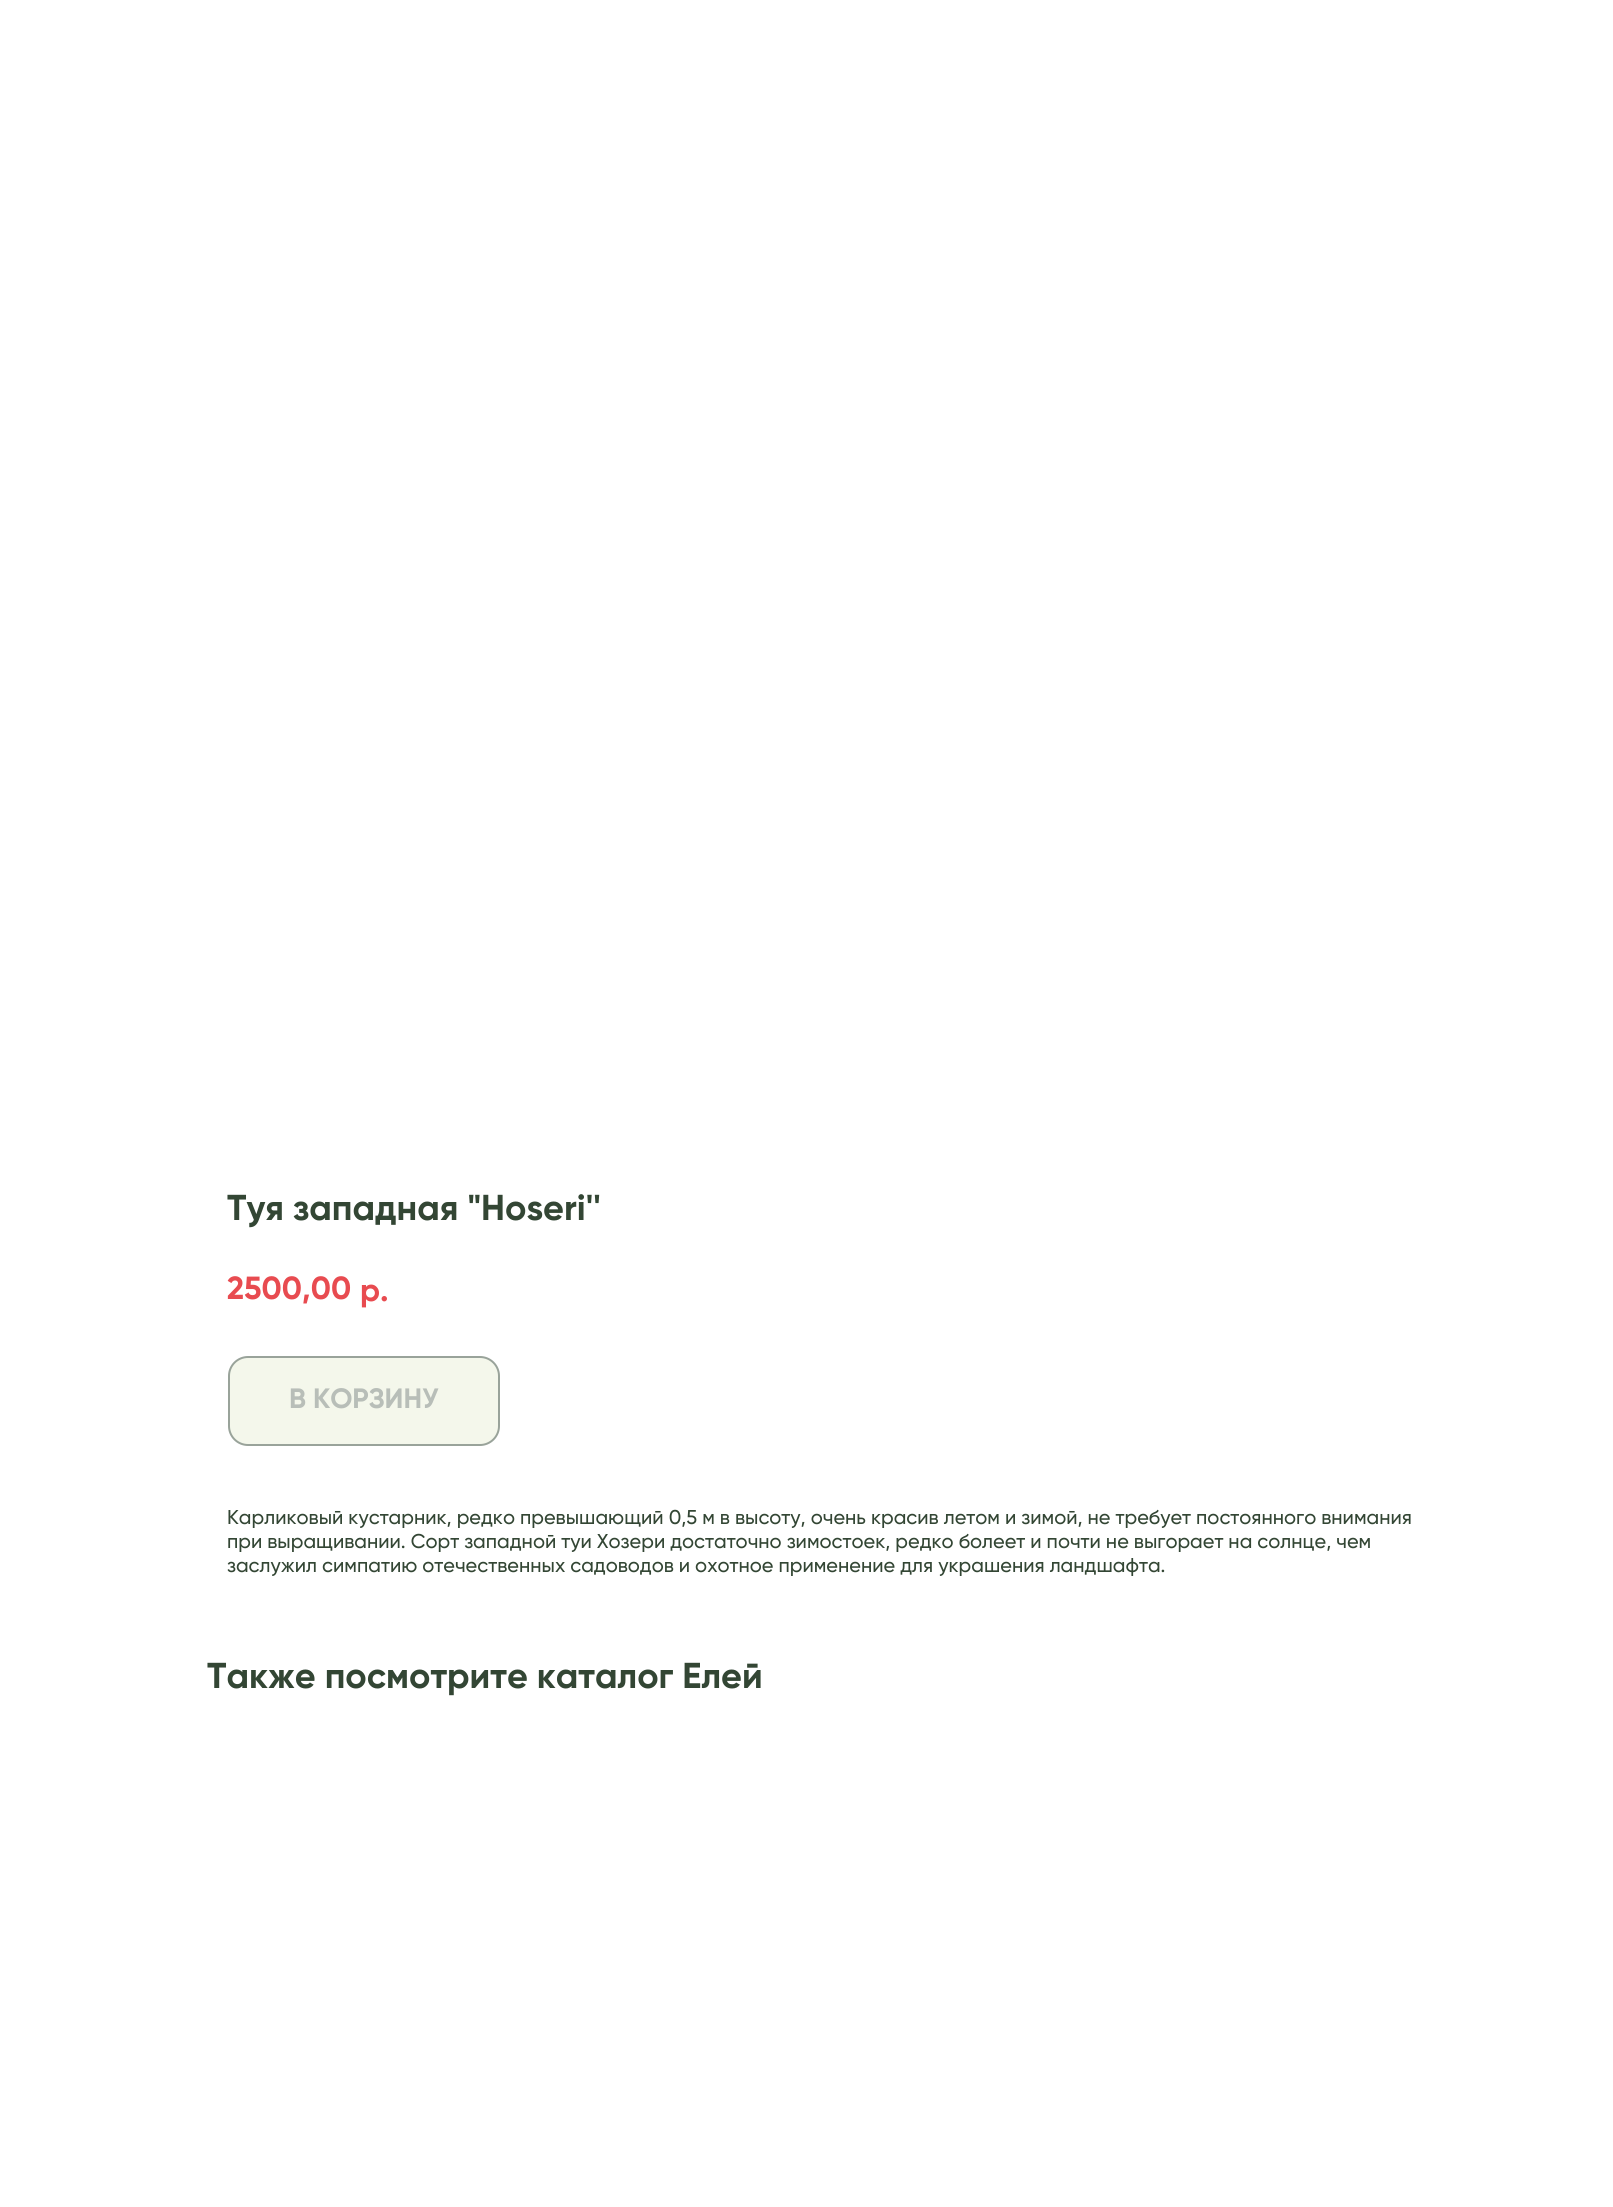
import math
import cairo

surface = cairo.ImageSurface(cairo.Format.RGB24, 1613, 2207)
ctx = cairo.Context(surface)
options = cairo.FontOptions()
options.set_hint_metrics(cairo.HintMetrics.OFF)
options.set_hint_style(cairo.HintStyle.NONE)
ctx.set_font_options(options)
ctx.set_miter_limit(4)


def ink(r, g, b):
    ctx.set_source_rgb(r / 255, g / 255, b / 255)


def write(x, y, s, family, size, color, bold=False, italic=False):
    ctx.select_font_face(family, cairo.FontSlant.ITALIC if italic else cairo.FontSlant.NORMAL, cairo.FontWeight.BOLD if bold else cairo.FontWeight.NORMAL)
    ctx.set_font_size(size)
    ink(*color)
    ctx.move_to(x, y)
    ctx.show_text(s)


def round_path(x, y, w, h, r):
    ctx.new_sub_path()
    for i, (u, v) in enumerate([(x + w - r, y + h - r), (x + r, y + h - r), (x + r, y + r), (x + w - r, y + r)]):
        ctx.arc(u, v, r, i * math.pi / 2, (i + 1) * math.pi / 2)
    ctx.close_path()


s1 = dict(family="Gilroy", size=36, color=(51, 70, 52), bold=True)
s2 = dict(family="Gilroy", size=32, color=(232, 75, 80), bold=True)
s3 = dict(family="Gilroy", size=28, color=(184, 190, 184), bold=True)
s4 = dict(family="Gilroy Medium", size=20, color=(51, 70, 52))

ink(255, 255, 255)
ctx.paint()
write(227, 1220, "Туя западная \"Hoseri''", **s1)
write(227, 1299, "2500,00", **s2)
write(360, 1301, "р.", **s2)
ink(244, 247, 235)
round_path(229, 1357, 270, 88, 19)
ctx.fill_preserve()
ink(153, 163, 154)
ctx.stroke()
write(289, 1408, "В КОРЗИНУ", **s3)
write(227, 1524, "Карликовый кустарник, редко превышающий 0,5 м в высоту, очень красив летом и зимой, не требует постоянного внимания", **s4)
write(227, 1548, "при выращивании. Сорт западной туи Хозери достаточно зимостоек, редко болеет и почти не выгорает на солнце, чем", **s4)
write(227, 1572, "заслужил симпатию отечественных садоводов и охотное применение для украшения ландшафта.", **s4)
write(207, 1688, "Также посмотрите каталог Елей", **s1)
surface.write_to_png("screenshot.png")
